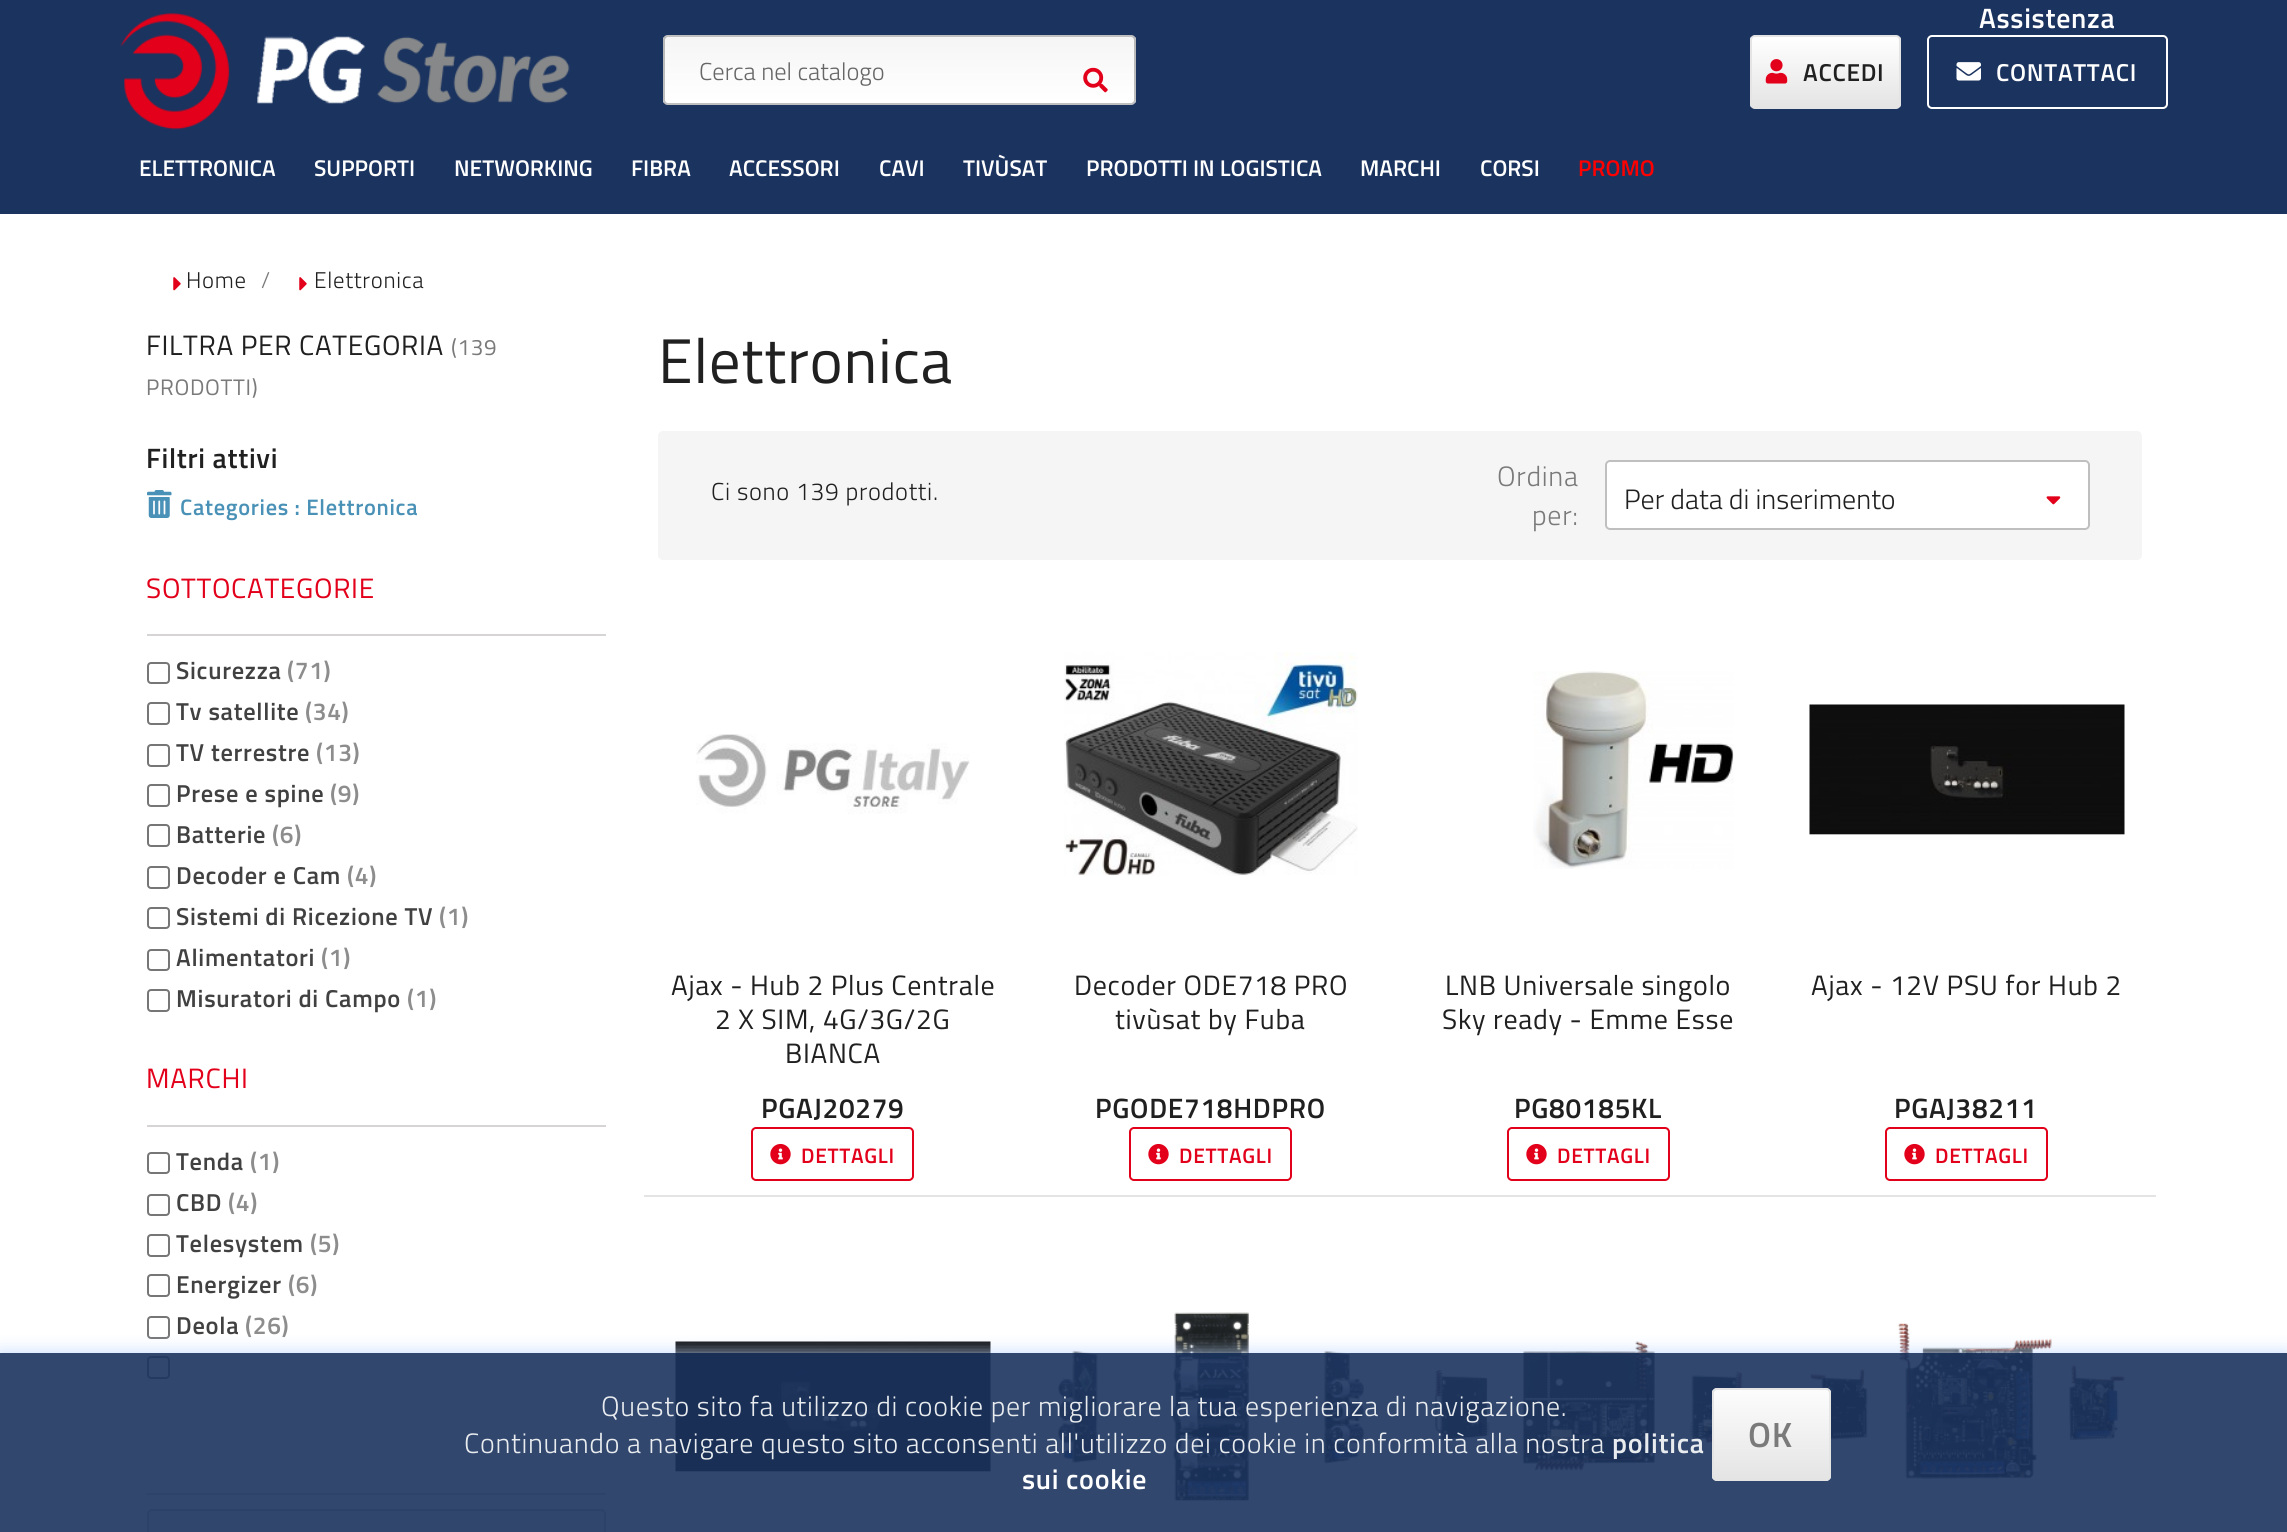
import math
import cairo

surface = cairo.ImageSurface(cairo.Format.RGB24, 2287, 1532)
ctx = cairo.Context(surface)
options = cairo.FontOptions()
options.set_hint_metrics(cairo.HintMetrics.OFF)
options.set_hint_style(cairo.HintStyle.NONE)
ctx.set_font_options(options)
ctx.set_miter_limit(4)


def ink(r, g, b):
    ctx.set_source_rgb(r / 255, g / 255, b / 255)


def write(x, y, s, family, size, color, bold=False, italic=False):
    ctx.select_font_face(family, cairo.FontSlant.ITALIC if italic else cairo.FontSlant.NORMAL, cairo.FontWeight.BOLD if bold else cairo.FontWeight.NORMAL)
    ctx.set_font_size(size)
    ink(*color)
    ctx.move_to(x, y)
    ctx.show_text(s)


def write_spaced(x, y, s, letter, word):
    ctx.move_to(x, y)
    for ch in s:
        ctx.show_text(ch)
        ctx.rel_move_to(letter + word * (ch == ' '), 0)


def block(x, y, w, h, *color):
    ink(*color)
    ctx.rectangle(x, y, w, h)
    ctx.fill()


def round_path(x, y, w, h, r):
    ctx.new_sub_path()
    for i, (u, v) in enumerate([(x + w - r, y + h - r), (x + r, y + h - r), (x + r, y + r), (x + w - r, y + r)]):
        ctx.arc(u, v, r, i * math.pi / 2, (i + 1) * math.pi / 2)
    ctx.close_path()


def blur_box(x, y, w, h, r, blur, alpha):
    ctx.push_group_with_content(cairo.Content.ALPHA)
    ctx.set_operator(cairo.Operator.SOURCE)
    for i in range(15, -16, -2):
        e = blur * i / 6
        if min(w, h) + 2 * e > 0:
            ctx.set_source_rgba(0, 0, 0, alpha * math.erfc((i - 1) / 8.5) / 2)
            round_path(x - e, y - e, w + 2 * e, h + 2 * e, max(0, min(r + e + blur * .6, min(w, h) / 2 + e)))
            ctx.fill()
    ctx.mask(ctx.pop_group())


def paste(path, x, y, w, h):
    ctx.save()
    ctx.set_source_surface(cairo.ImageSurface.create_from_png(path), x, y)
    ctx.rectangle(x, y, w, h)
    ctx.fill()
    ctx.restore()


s1 = dict(family="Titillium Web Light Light", size=24.5, color=(102, 102, 102))
s2 = dict(family="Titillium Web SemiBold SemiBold", size=22.75, color=(255, 255, 255))
s3 = dict(family="Titillium Web SemiBold SemiBold", size=22.75, color=(255, 0, 0))
s4 = dict(family="Titillium Web Light Light", size=28, color=(32, 32, 32))

ink(255, 255, 255)
ctx.paint()
block(0, 0, 2287, 214, 27, 51, 95)
paste("pic1.png", 120, 13, 450, 117)
ink(255, 255, 255)
round_path(663, 35, 473, 70, 5)
ctx.fill()
ctx.save()
round_path(663, 35, 473, 70, 5)
ctx.clip()
gradient = cairo.LinearGradient(900, 37, 900, 103)
gradient.add_color_stop_rgba(0, 0.961, 0.961, 0.961, 1)
gradient.add_color_stop_rgba(1, 1, 1, 1, 1)
ctx.set_source(gradient)
ctx.rectangle(663, 37, 473, 66)
ctx.fill()
ctx.restore()
round_path(664, 36, 471, 68, 4)
ctx.set_source_rgba(0, 0, 0, 0.25)
ctx.stroke()
write(699, 80, "Cerca nel catalogo", **s1)
paste("pic2.png", 1083, 67, 25, 26)
ctx.save()
round_path(1750, 35, 151, 74, 5)
ctx.clip()
gradient = cairo.LinearGradient(1825, 107, 1825, 37)
gradient.add_color_stop_rgba(0, 0.894, 0.894, 0.894, 1)
gradient.add_color_stop_rgba(1, 1, 1, 1, 1)
ctx.set_source(gradient)
ctx.rectangle(1750, 37, 151, 70)
ctx.fill()
ctx.restore()
round_path(1751, 36, 149, 72, 4)
ink(228, 228, 228)
ctx.stroke()
paste("pic3.png", 1765, 59, 23, 25)
ctx.select_font_face("Titillium Web SemiBold SemiBold")
ink(32, 32, 32)
write_spaced(1803, 81, "ACCEDI", 0.7, 0)
ctx.set_font_size(28)
ink(255, 255, 255)
write_spaced(1979, 28, "Assistenza", 0.7, 0)
round_path(1928, 36, 239, 72, 4)
ctx.stroke()
paste("pic4.png", 1956, 62, 25, 19)
ctx.set_font_size(24.5)
write_spaced(1996, 81, "CONTATTACI", 0.7, 0)
write(139, 176, "ELETTRONICA", **s2)
write(314, 176, "SUPPORTI", **s2)
write(454, 176, "NETWORKING", **s2)
write(631, 176, "FIBRA", **s2)
write(729, 176, "ACCESSORI", **s2)
write(879, 176, "CAVI", **s2)
write(963, 176, "TIVÙSAT", **s2)
write(1086, 176, "PRODOTTI IN LOGISTICA", **s2)
write(1360, 176, "MARCHI", **s2)
write(1480, 176, "CORSI", **s2)
write(1578, 176, "PROMO", **s3)
paste("pic5.png", 173, 277, 8, 14)
ctx.select_font_face("Titillium Web Light Light")
ink(32, 32, 32)
write_spaced(186, 288, "Home", 0.7, 0)
ink(122, 122, 122)
write_spaced(261, 288, "/", 0.7, 0)
paste("pic5.png", 299, 277, 8, 14)
ink(32, 32, 32)
write_spaced(314, 288, "Elettronica", 0.7, 0)
ctx.select_font_face("Titillium Web")
ctx.set_font_size(28)
write_spaced(146, 355, "FILTRA PER CATEGORIA", 0.7, 0)
ctx.set_font_size(22.4)
ink(122, 122, 122)
write_spaced(451, 355, "(139", 0.7, 0)
write_spaced(146, 395, "PRODOTTI)", 0.7, 0)
ctx.select_font_face("Titillium Web SemiBold SemiBold")
ctx.set_font_size(28)
ink(32, 32, 32)
write_spaced(146, 468, "Filtri attivi", 0.7, 0)
paste("pic6.png", 147, 490, 25, 28)
ctx.set_font_size(22.4)
ink(73, 145, 182)
write_spaced(180, 515, "Categories : Elettronica", 0.7, 0)
block(147, 634, 459, 2, 214, 212, 212)
ctx.select_font_face("Titillium Web")
ctx.set_font_size(28)
ink(226, 0, 26)
write_spaced(146, 598, "SOTTOCATEGORIE", 0.7, 0)
round_path(148, 663, 21, 20, 3)
ink(118, 118, 118)
ctx.stroke()
ctx.select_font_face("Titillium Web SemiBold SemiBold")
ctx.set_font_size(24.5)
ink(65, 65, 65)
write_spaced(176, 679, "Sicurezza", 0.7, 0)
ink(141, 141, 141)
write_spaced(287, 679, "(71)", 0.7, 0)
round_path(148, 703, 21, 21, 3)
ink(118, 118, 118)
ctx.stroke()
ink(65, 65, 65)
write_spaced(176, 720, "Tv satellite", 0.7, 0)
ink(141, 141, 141)
write_spaced(305, 720, "(34)", 0.7, 0)
round_path(148, 745, 21, 21, 3)
ink(118, 118, 118)
ctx.stroke()
ink(65, 65, 65)
write_spaced(176, 761, "TV terrestre", 0.7, 0)
ink(141, 141, 141)
write_spaced(316, 761, "(13)", 0.7, 0)
round_path(148, 785, 21, 21, 3)
ink(118, 118, 118)
ctx.stroke()
ink(65, 65, 65)
write_spaced(176, 802, "Prese e spine", 0.7, 0)
ink(141, 141, 141)
write_spaced(330, 802, "(9)", 0.7, 0)
round_path(148, 825, 21, 21, 3)
ink(118, 118, 118)
ctx.stroke()
ink(65, 65, 65)
write_spaced(176, 843, "Batterie", 0.7, 0)
ink(141, 141, 141)
write_spaced(272, 843, "(6)", 0.7, 0)
round_path(148, 867, 21, 21, 3)
ink(118, 118, 118)
ctx.stroke()
ink(65, 65, 65)
write_spaced(176, 884, "Decoder e Cam", 0.7, 0)
ink(141, 141, 141)
write_spaced(347, 884, "(4)", 0.7, 0)
round_path(148, 908, 21, 20, 3)
ink(118, 118, 118)
ctx.stroke()
ink(65, 65, 65)
write_spaced(176, 925, "Sistemi di Ricezione TV", 0.7, 0)
ink(141, 141, 141)
write_spaced(439, 925, "(1)", 0.7, 0)
round_path(148, 950, 21, 20, 3)
ink(118, 118, 118)
ctx.stroke()
ink(65, 65, 65)
write_spaced(176, 966, "Alimentatori", 0.7, 0)
ink(141, 141, 141)
write_spaced(321, 966, "(1)", 0.7, 0)
round_path(148, 990, 21, 21, 3)
ink(118, 118, 118)
ctx.stroke()
ink(65, 65, 65)
write_spaced(176, 1007, "Misuratori di Campo", 0.7, 0)
ink(141, 141, 141)
write_spaced(407, 1007, "(1)", 0.7, 0)
block(147, 1125, 459, 2, 214, 212, 212)
ctx.select_font_face("Titillium Web")
ctx.set_font_size(28)
ink(226, 0, 26)
write_spaced(146, 1088, "MARCHI", 0.7, 0)
round_path(148, 1153, 21, 20, 3)
ink(118, 118, 118)
ctx.stroke()
ctx.select_font_face("Titillium Web SemiBold SemiBold")
ctx.set_font_size(24.5)
ink(65, 65, 65)
write_spaced(176, 1170, "Tenda", 0.7, 0)
ink(141, 141, 141)
write_spaced(250, 1170, "(1)", 0.7, 0)
round_path(148, 1195, 21, 20, 3)
ink(118, 118, 118)
ctx.stroke()
ink(65, 65, 65)
write_spaced(176, 1211, "CBD", 0.7, 0)
ink(141, 141, 141)
write_spaced(228, 1211, "(4)", 0.7, 0)
round_path(148, 1235, 21, 21, 3)
ink(118, 118, 118)
ctx.stroke()
ink(65, 65, 65)
write_spaced(176, 1252, "Telesystem", 0.7, 0)
ink(141, 141, 141)
write_spaced(310, 1252, "(5)", 0.7, 0)
round_path(148, 1275, 21, 21, 3)
ink(118, 118, 118)
ctx.stroke()
ink(65, 65, 65)
write_spaced(176, 1293, "Energizer", 0.7, 0)
ink(141, 141, 141)
write_spaced(288, 1293, "(6)", 0.7, 0)
round_path(148, 1317, 21, 21, 3)
ink(118, 118, 118)
ctx.stroke()
ink(65, 65, 65)
write_spaced(176, 1334, "Deola", 0.7, 0)
ink(141, 141, 141)
write_spaced(245, 1334, "(26)", 0.7, 0)
round_path(148, 1357, 21, 21, 3)
ink(118, 118, 118)
ctx.stroke()
block(147, 1493, 459, 2, 214, 212, 212)
ink(241, 241, 241)
round_path(148, 1510, 457, 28, 4)
ctx.fill_preserve()
ink(203, 203, 203)
ctx.stroke()
ctx.select_font_face("Titillium Web")
ctx.set_font_size(63)
ink(32, 32, 32)
write_spaced(658, 383, "Elettronica", 0.7, 0)
ink(245, 245, 245)
round_path(658, 431, 1484, 129, 5)
ctx.fill()
ctx.select_font_face("Titillium Web Light Light")
ctx.set_font_size(24.5)
ink(32, 32, 32)
write_spaced(711, 500, "Ci sono 139 prodotti.", 0.7, 0)
ctx.set_font_size(28)
ink(122, 122, 122)
write_spaced(1497, 486, "Ordina", 0.7, 0)
write_spaced(1532, 525, "per:", 0.7, 0)
ink(255, 255, 255)
round_path(1605, 460, 485, 70, 5)
ctx.fill()
round_path(1606, 461, 483, 68, 4)
ctx.set_source_rgba(0, 0, 0, 0.25)
ctx.stroke()
write(1624, 509, "Per data di inserimento", **s4)
paste("pic7.png", 2046, 496, 15, 9)
block(644, 1195, 1512, 2, 228, 228, 228)
paste("pic8.png", 696, 734, 274, 80)
ctx.select_font_face("Titillium Web")
ink(32, 32, 32)
write_spaced(671, 995, "Ajax - Hub 2 Plus Centrale", 0.7, 0)
write_spaced(715, 1029, "2 X SIM, 4G/3G/2G", 0.7, 0)
write_spaced(785, 1063, "BIANCA", 0.7, 0)
ctx.select_font_face("Titillium Web SemiBold SemiBold")
write_spaced(761, 1118, "PGAJ20279", 0.7, 0)
round_path(752, 1128, 161, 52, 4)
ink(226, 0, 26)
ctx.stroke()
paste("pic9.png", 770, 1143, 21, 22)
ctx.set_font_size(21)
write_spaced(801, 1163, "DETTAGLI", 0.7, 0)
paste("pic10.png", 1064, 652, 294, 224)
ctx.select_font_face("Titillium Web")
ctx.set_font_size(28)
ink(32, 32, 32)
write_spaced(1074, 995, "Decoder ODE718 PRO", 0.7, 0)
write_spaced(1115, 1029, "tivùsat by Fuba", 0.7, 0)
ctx.select_font_face("Titillium Web SemiBold SemiBold")
write_spaced(1095, 1118, "PGODE718HDPRO", 0.7, 0)
round_path(1130, 1128, 161, 52, 4)
ink(226, 0, 26)
ctx.stroke()
paste("pic9.png", 1148, 1143, 21, 22)
ctx.set_font_size(21)
write_spaced(1179, 1163, "DETTAGLI", 0.7, 0)
paste("pic11.png", 1533, 671, 201, 198)
ctx.select_font_face("Titillium Web")
ctx.set_font_size(28)
ink(32, 32, 32)
write_spaced(1445, 995, "LNB Universale singolo", 0.7, 0)
write_spaced(1442, 1029, "Sky ready - Emme Esse", 0.7, 0)
ctx.select_font_face("Titillium Web SemiBold SemiBold")
write_spaced(1514, 1118, "PG80185KL", 0.7, 0)
round_path(1508, 1128, 161, 52, 4)
ink(226, 0, 26)
ctx.stroke()
paste("pic9.png", 1526, 1143, 21, 22)
ctx.set_font_size(21)
write_spaced(1557, 1163, "DETTAGLI", 0.7, 0)
paste("pic12.png", 1809, 704, 316, 131)
ctx.select_font_face("Titillium Web")
ctx.set_font_size(28)
ink(32, 32, 32)
write_spaced(1811, 995, "Ajax - 12V PSU for Hub 2", 0.7, 0)
ctx.select_font_face("Titillium Web SemiBold SemiBold")
write_spaced(1894, 1118, "PGAJ38211", 0.7, 0)
round_path(1886, 1128, 161, 52, 4)
ink(226, 0, 26)
ctx.stroke()
paste("pic9.png", 1904, 1143, 21, 22)
ctx.set_font_size(21)
write_spaced(1935, 1163, "DETTAGLI", 0.7, 0)
paste("pic13.png", 675, 1341, 316, 131)
paste("pic14.png", 1057, 1312, 308, 190)
paste("pic15.png", 1434, 1341, 310, 130)
paste("pic16.png", 1810, 1323, 315, 156)
ctx.save()
ctx.rectangle(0, 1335, 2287, 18)
ctx.clip()
ink(191, 215, 255)
blur_box(0, 1353, 2287, 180, 0, 9, 0.9)
ctx.restore()
ctx.set_source_rgba(0.106, 0.2, 0.373, 0.9)
ctx.rectangle(0, 1353, 2287, 179)
ctx.fill()
ctx.select_font_face("Titillium Web Light Light")
ctx.set_font_size(28)
ink(233, 236, 239)
write_spaced(601, 1416, "Questo sito fa utilizzo di cookie per migliorare la tua esperienza di navigazione.", 0.7, 0)
write_spaced(464, 1453, "Continuando a navigare questo sito acconsenti all'utilizzo dei cookie in conformità alla nostra", 0.7, 0)
ctx.select_font_face("Titillium Web SemiBold SemiBold")
write_spaced(1612, 1453, "politica", 0.7, 0)
ctx.set_source_rgba(1, 1, 1, 0.9)
round_path(1712, 1388, 119, 93, 5)
ctx.fill()
ctx.save()
round_path(1712, 1388, 119, 93, 5)
ctx.clip()
gradient = cairo.LinearGradient(1771, 1479, 1771, 1390)
gradient.add_color_stop_rgba(0, 0.894, 0.894, 0.894, 0.9)
gradient.add_color_stop_rgba(1, 1, 1, 1, 0.9)
ctx.set_source(gradient)
ctx.rectangle(1712, 1390, 119, 89)
ctx.fill()
ctx.restore()
round_path(1713, 1389, 117, 91, 4)
ctx.set_source_rgba(0.894, 0.894, 0.894, 0.9)
ctx.stroke()
ctx.set_font_size(35)
ink(122, 122, 122)
write_spaced(1748, 1447, "OK", 0.7, 0)
ctx.set_font_size(28)
ink(255, 255, 255)
write_spaced(1022, 1489, "sui cookie", 0.7, 0)
surface.write_to_png("screenshot.png")
